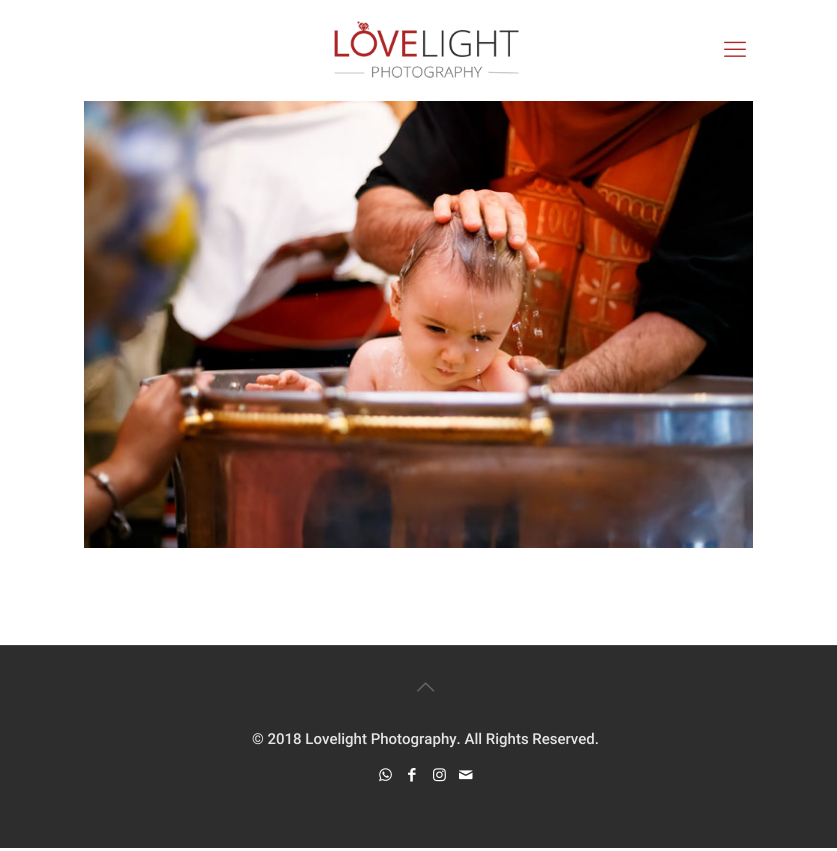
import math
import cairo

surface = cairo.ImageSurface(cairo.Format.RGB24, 837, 851)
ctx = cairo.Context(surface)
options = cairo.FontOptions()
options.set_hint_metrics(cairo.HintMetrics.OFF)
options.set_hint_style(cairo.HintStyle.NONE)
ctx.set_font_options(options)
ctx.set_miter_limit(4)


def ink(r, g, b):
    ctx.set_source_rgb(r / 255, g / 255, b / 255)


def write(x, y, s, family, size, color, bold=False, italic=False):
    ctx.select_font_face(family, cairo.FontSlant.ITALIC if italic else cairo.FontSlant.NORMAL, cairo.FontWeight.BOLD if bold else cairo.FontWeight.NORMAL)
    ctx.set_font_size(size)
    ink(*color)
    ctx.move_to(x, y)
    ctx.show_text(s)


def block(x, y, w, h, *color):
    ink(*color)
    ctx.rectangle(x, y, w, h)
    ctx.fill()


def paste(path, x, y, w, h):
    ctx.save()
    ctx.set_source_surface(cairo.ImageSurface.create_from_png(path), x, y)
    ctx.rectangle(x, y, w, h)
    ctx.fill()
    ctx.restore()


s1 = dict(family="Roboto Medium", size=15, color=(228, 228, 228))

ink(255, 255, 255)
ctx.paint()
paste("pic1.png", 334, 21, 185, 57)
paste("pic2.png", 724, 41, 22, 16)
paste("pic3.png", 84, 101, 669, 447)
block(0, 646, 837, 202, 45, 45, 45)
block(0, 645, 837, 1, 66, 66, 66)
paste("pic4.png", 417, 682, 18, 10)
write(252, 744, "© 2018 Lovelight Photography. All Rights Reserved.", **s1)
paste("pic5.png", 379, 768, 13, 14)
paste("pic6.png", 408, 768, 8, 14)
paste("pic7.png", 433, 768, 13, 14)
paste("pic8.png", 459, 770, 14, 10)
surface.write_to_png("screenshot.png")
